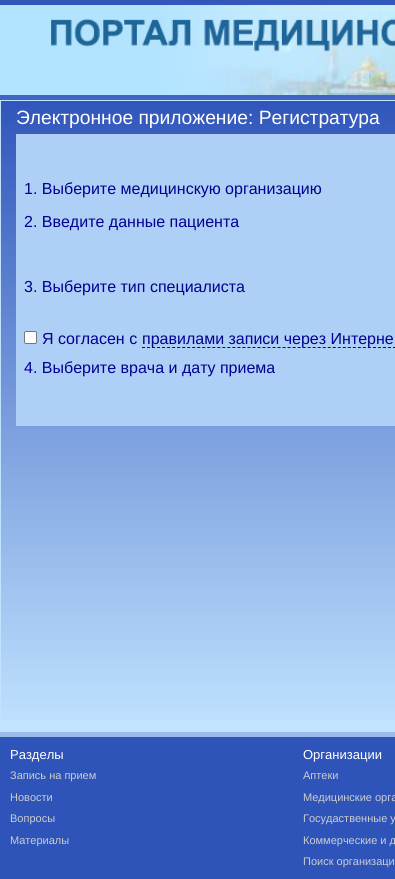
import math
import cairo

surface = cairo.ImageSurface(cairo.Format.RGB24, 395, 879)
ctx = cairo.Context(surface)
options = cairo.FontOptions()
options.set_hint_metrics(cairo.HintMetrics.OFF)
options.set_hint_style(cairo.HintStyle.NONE)
ctx.set_font_options(options)
ctx.set_miter_limit(4)


def ink(r, g, b):
    ctx.set_source_rgb(r / 255, g / 255, b / 255)


def write(x, y, s, family, size, color, bold=False, italic=False):
    ctx.select_font_face(family, cairo.FontSlant.ITALIC if italic else cairo.FontSlant.NORMAL, cairo.FontWeight.BOLD if bold else cairo.FontWeight.NORMAL)
    ctx.set_font_size(size)
    ink(*color)
    ctx.move_to(x, y)
    ctx.show_text(s)


def block(x, y, w, h, *color):
    ink(*color)
    ctx.rectangle(x, y, w, h)
    ctx.fill()


def round_path(x, y, w, h, r):
    ctx.new_sub_path()
    for i, (u, v) in enumerate([(x + w - r, y + h - r), (x + r, y + h - r), (x + r, y + r), (x + w - r, y + r)]):
        ctx.arc(u, v, r, i * math.pi / 2, (i + 1) * math.pi / 2)
    ctx.close_path()


def paste(path, x, y, w, h):
    ctx.save()
    ctx.set_source_surface(cairo.ImageSurface.create_from_png(path), x, y)
    ctx.rectangle(x, y, w, h)
    ctx.fill()
    ctx.restore()


s1 = dict(family="Liberation Sans", size=19.25, color=(255, 255, 255))
s2 = dict(family="Liberation Sans", size=16, color=(2, 0, 145))
s3 = dict(family="Liberation Sans", size=13, color=(255, 255, 255))
s4 = dict(family="Liberation Sans", size=11, color=(205, 205, 207))

ink(255, 255, 255)
ctx.paint()
gradient = cairo.LinearGradient(197, 0, 198, 879)
gradient.add_color_stop_rgba(0, 0.196, 0.341, 0.733, 1)
gradient.add_color_stop_rgba(1, 0.682, 0.816, 0.965, 1)
ctx.set_source(gradient)
ctx.rectangle(0, 0, 395, 737)
ctx.fill()
paste("pic1.png", 0, 5, 395, 90)
block(0, 100, 395, 632, 193, 227, 255)
gradient = cairo.LinearGradient(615, 101, 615, 731)
gradient.add_color_stop_rgba(0, 0.192, 0.337, 0.733, 1)
gradient.add_color_stop_rgba(1, 0.757, 0.89, 1, 1)
ctx.set_source(gradient)
ctx.rectangle(1, 101, 394, 619)
ctx.fill()
write(16, 124, "Электронное приложение: Регистратура", **s1)
block(16, 134, 379, 292, 174, 208, 246)
write(24, 194, "1. Выберите медицинскую организацию", **s2)
write(24, 227, "2. Введите данные пациента", **s2)
write(24, 292, "3. Выберите тип специалиста", **s2)
ink(255, 255, 255)
round_path(24.5, 331.5, 12, 12, 1.5)
ctx.fill_preserve()
ink(118, 118, 118)
ctx.set_line_width(1)
ctx.stroke()
write(42, 344, "Я согласен с", **s2)
ctx.new_path()
ctx.move_to(142, 347.5)
ctx.line_to(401, 347.5)
ctx.set_dash([3, 2.02])
ctx.stroke()
write(142, 344, "правилами записи через Интерне", **s2)
write(24, 373, "4. Выберите врача и дату приема", **s2)
block(0, 737, 395, 142, 46, 84, 185)
write(10, 759, "Разделы", **s3)
write(10, 779, "Запись на прием", **s4)
write(10, 801, "Новости", **s4)
write(10, 822, "Вопросы", **s4)
write(10, 844, "Материалы", **s4)
write(303, 759, "Организации", **s3)
write(303, 779, "Аптеки", **s4)
write(303, 801, "Медицинские орга", **s4)
write(303, 822, "Госудаственные у", **s4)
write(303, 844, "Коммерческие и д", **s4)
write(303, 865, "Поиск организаци", **s4)
surface.write_to_png("screenshot.png")
